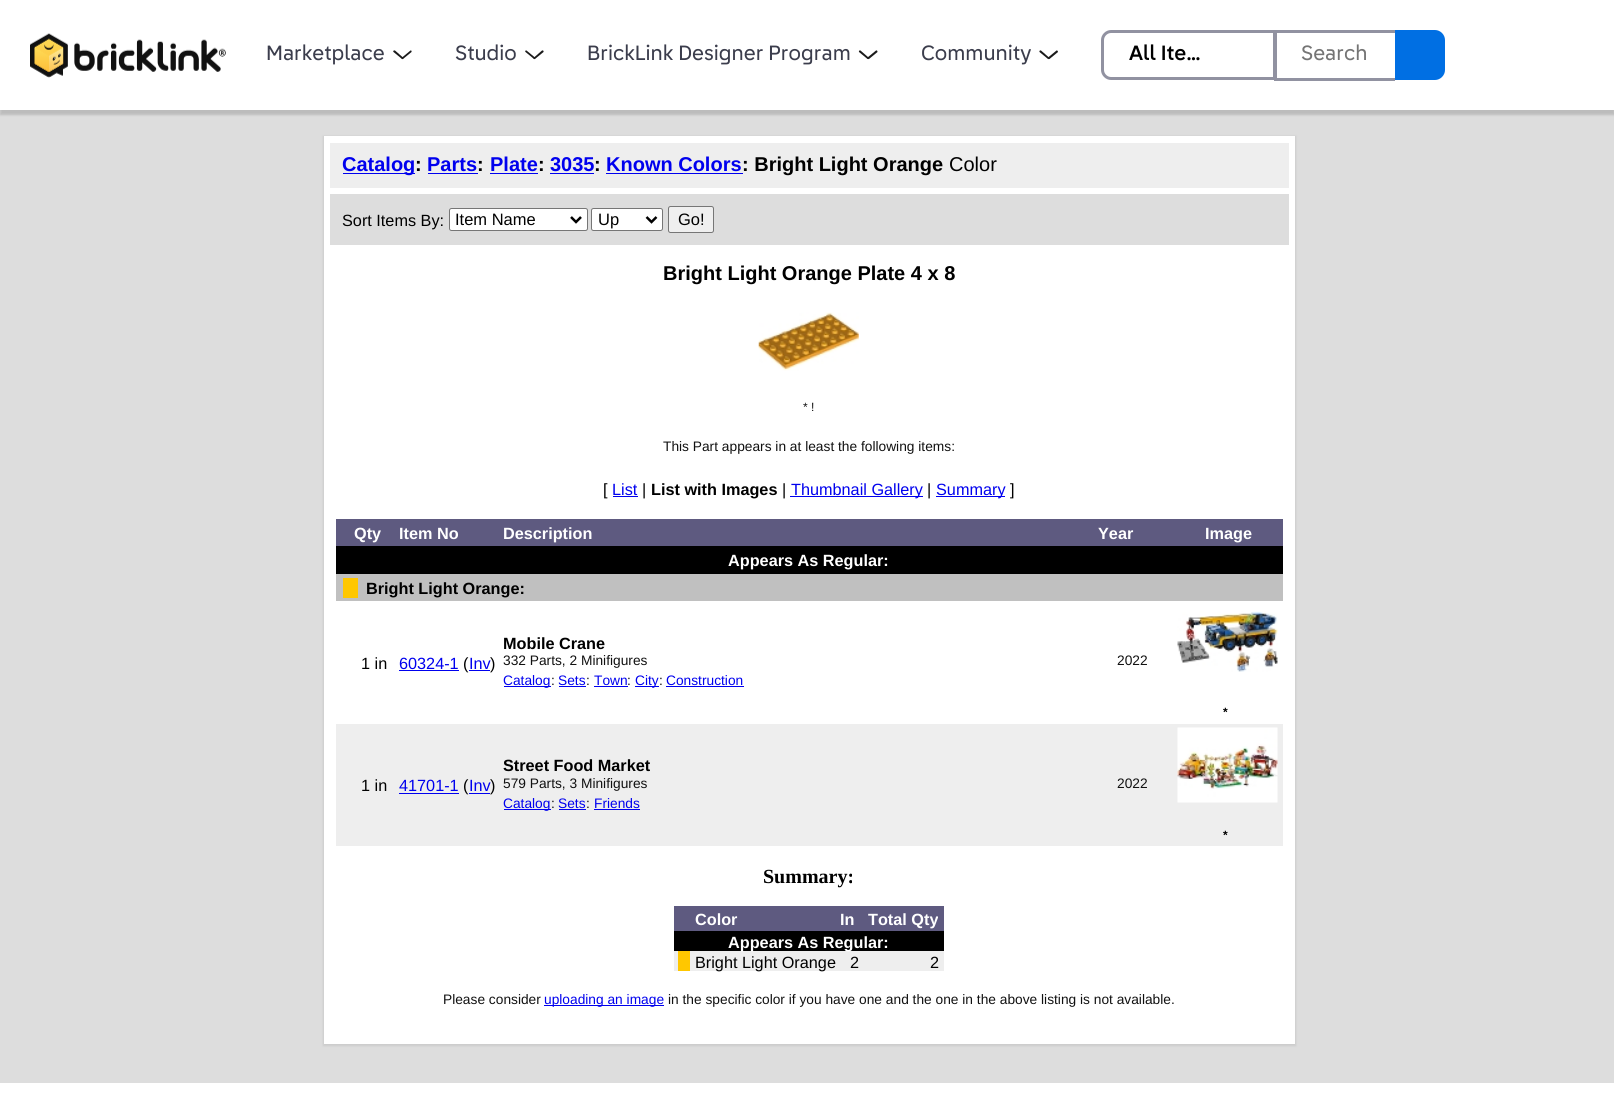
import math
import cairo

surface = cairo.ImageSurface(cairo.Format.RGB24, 1614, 1115)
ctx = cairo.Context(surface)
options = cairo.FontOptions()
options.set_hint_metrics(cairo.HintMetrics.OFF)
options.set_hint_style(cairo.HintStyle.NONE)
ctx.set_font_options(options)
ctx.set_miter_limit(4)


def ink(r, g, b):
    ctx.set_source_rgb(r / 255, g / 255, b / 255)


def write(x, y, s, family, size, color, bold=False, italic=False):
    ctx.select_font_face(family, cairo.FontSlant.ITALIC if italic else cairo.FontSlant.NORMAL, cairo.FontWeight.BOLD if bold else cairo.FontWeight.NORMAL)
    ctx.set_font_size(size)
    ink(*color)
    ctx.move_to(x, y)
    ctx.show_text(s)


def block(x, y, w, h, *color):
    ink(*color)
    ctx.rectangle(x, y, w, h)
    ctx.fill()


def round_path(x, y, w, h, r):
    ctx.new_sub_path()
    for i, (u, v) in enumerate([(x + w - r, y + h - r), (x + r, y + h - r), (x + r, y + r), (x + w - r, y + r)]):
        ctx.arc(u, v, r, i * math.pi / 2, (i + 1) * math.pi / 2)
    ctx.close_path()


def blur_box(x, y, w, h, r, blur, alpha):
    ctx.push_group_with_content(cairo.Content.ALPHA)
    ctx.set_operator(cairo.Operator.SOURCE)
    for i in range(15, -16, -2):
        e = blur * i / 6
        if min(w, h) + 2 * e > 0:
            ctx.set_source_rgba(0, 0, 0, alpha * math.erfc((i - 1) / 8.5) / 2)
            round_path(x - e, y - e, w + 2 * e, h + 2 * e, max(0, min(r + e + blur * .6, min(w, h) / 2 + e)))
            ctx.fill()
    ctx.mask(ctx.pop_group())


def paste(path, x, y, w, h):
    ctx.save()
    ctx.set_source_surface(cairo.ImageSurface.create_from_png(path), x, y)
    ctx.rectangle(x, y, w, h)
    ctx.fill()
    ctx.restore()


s1 = dict(family="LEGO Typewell", size=20, color=(59, 61, 76))
s2 = dict(family="LEGO Typewell Medium", size=20, color=(0, 0, 0))
s3 = dict(family="LEGO Typewell", size=20, color=(117, 117, 117))
s4 = dict(family="Liberation Sans", size=20, color=(0, 0, 238), bold=True)
s5 = dict(family="Liberation Sans", size=20, color=(0, 0, 0), bold=True)
s6 = dict(family="Liberation Sans", size=20, color=(0, 0, 0))
s7 = dict(family="Liberation Sans", size=16.25, color=(0, 0, 0))
s8 = dict(family="Liberation Sans", size=16.5, color=(0, 0, 0))
s9 = dict(family="Liberation Sans", size=12, color=(17, 17, 17))
s10 = dict(family="Liberation Sans", size=13.75, color=(17, 17, 17))
s11 = dict(family="Liberation Sans", size=16.25, color=(0, 0, 238))
s12 = dict(family="Liberation Sans", size=16.25, color=(0, 0, 0), bold=True)
s13 = dict(family="Liberation Sans", size=16.25, color=(255, 255, 255), bold=True)
s14 = dict(family="Liberation Sans", size=13.75, color=(0, 0, 238))
s15 = dict(family="Liberation Sans", size=12, color=(0, 0, 0), bold=True)
s16 = dict(family="Liberation Serif", size=20, color=(0, 0, 0), bold=True)

ink(221, 221, 221)
ctx.paint()
ink(0, 0, 0)
blur_box(0, 5, 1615, 110, 0, 1, 0.15)
block(0, 0, 1614, 110, 255, 255, 255)
paste("pic1.png", 30, 33, 196, 45)
write(266, 60, "Marketplace", **s1)
ink(26, 26, 26)
ctx.new_path()
ctx.move_to(395, 50.5)
ctx.line_to(403, 57.5)
ctx.curve_to(403.5, 58.5, 403, 59.5, 402, 59)
ctx.line_to(393.5, 52)
ctx.curve_to(392.5, 51, 394, 50, 395, 50.5)
ctx.close_path()
ctx.fill()
ctx.new_path()
ctx.move_to(402, 57.5)
ctx.line_to(410.5, 50.5)
ctx.curve_to(411, 50, 412, 51, 411.5, 52)
ctx.line_to(403, 59)
ctx.curve_to(402, 59.5, 401, 58, 402, 57.5)
ctx.close_path()
ctx.fill()
write(455, 60, "Studio", **s1)
ink(26, 26, 26)
ctx.new_path()
ctx.move_to(526.5, 50.5)
ctx.line_to(535, 57.5)
ctx.curve_to(535.5, 58.5, 534.5, 59.5, 534, 59)
ctx.line_to(525.5, 52)
ctx.curve_to(524.5, 51, 526, 50, 526.5, 50.5)
ctx.close_path()
ctx.fill()
ctx.new_path()
ctx.move_to(534, 57.5)
ctx.line_to(542, 50.5)
ctx.curve_to(543, 50, 544, 51, 543.5, 52)
ctx.line_to(535, 59)
ctx.curve_to(534, 59.5, 533, 58, 534, 57.5)
ctx.close_path()
ctx.fill()
write(587, 60, "BrickLink Designer Program", **s1)
ink(26, 26, 26)
ctx.new_path()
ctx.move_to(860.5, 50.5)
ctx.line_to(868.5, 57.5)
ctx.curve_to(869, 58.5, 868.5, 59.5, 867.5, 59)
ctx.line_to(859, 52)
ctx.curve_to(858.5, 51, 859.5, 50, 860.5, 50.5)
ctx.close_path()
ctx.fill()
ctx.new_path()
ctx.move_to(867.5, 57.5)
ctx.line_to(876, 50.5)
ctx.curve_to(877, 50, 877.5, 51, 877.5, 52)
ctx.line_to(869, 59)
ctx.curve_to(868, 59.5, 867, 58, 867.5, 57.5)
ctx.close_path()
ctx.fill()
write(921, 60, "Community", **s1)
ink(26, 26, 26)
ctx.new_path()
ctx.move_to(1041, 50.5)
ctx.line_to(1049, 57.5)
ctx.curve_to(1049.5, 58.5, 1049, 59.5, 1048, 59)
ctx.line_to(1039.5, 52)
ctx.curve_to(1039, 51, 1040, 50, 1041, 50.5)
ctx.close_path()
ctx.fill()
ctx.new_path()
ctx.move_to(1048, 57.5)
ctx.line_to(1056.5, 50.5)
ctx.curve_to(1057, 50, 1058, 51, 1058, 52)
ctx.line_to(1049.5, 59)
ctx.curve_to(1048.5, 59.5, 1047.5, 58, 1048, 57.5)
ctx.close_path()
ctx.fill()
block(1274, 30, 121, 3, 145, 146, 161)
block(1274, 78, 121, 3, 145, 146, 161)
ink(255, 255, 255)
ctx.new_path()
ctx.move_to(1111, 31.5)
ctx.line_to(1274.5, 31.5)
ctx.line_to(1274.5, 78.5)
ctx.line_to(1111, 78.5)
ctx.curve_to(1106.5, 78.5, 1102.5, 74.5, 1102.5, 70)
ctx.line_to(1102.5, 40)
ctx.curve_to(1102.5, 35.5, 1106.5, 31.5, 1111, 31.5)
ctx.close_path()
ctx.fill_preserve()
ink(145, 146, 161)
ctx.set_line_width(3)
ctx.stroke()
write(1129, 60, "All Ite…", **s2)
block(1276, 30, 1, 50, 145, 146, 161)
write(1301, 60, "Search", **s3)
ink(0, 111, 227)
ctx.new_path()
ctx.move_to(1396.5, 31.5)
ctx.line_to(1435, 31.5)
ctx.curve_to(1439.5, 31.5, 1443.5, 35.5, 1443.5, 40)
ctx.line_to(1443.5, 70)
ctx.curve_to(1443.5, 74.5, 1439.5, 78.5, 1435, 78.5)
ctx.line_to(1396.5, 78.5)
ctx.close_path()
ctx.fill_preserve()
ctx.stroke()
ink(204, 204, 204)
blur_box(323, 136, 973, 910, 0, 1, 1)
block(324, 136, 971, 908, 255, 255, 255)
block(330, 143, 959, 45, 238, 238, 238)
block(343, 173, 72, 1, 0, 0, 238)
write(342, 171, "Catalog", **s4)
write(415, 171, ":", **s5)
write(427, 171, "Parts", **s4)
write(477, 171, ":", **s5)
block(428, 173, 50, 1, 0, 0, 238)
write(490, 171, "Plate", **s4)
write(538, 171, ":", **s5)
block(490, 173, 48, 1, 0, 0, 238)
write(550, 171, "3035", **s4)
block(550, 173, 44, 1, 0, 0, 238)
write(594, 171, ":", **s5)
write(606, 171, "Known Colors", **s4)
write(742, 171, ": Bright Light Orange", **s5)
block(606, 173, 137, 1, 0, 0, 238)
write(949, 171, "Color", **s6)
block(330, 194, 959, 51, 221, 221, 221)
write(342, 226, "Sort Items By:", **s7)
ink(255, 255, 255)
round_path(449.5, 208.5, 138, 22, 2)
ctx.fill_preserve()
ink(118, 118, 118)
ctx.set_line_width(1)
ctx.stroke()
ctx.new_path()
ctx.move_to(571, 217)
ctx.line_to(576, 222)
ctx.line_to(581, 217)
ink(0, 0, 0)
ctx.set_line_width(2.5)
ctx.stroke()
write(455, 225, "Item Name", **s8)
ink(255, 255, 255)
round_path(591.5, 208.5, 71, 22, 2)
ctx.fill_preserve()
ink(118, 118, 118)
ctx.set_line_width(1)
ctx.stroke()
ctx.new_path()
ctx.move_to(646.5, 217)
ctx.line_to(651.5, 222)
ctx.line_to(656.5, 217)
ink(0, 0, 0)
ctx.set_line_width(2.5)
ctx.stroke()
write(598, 225, "Up", **s8)
ink(239, 239, 239)
round_path(668.5, 206.5, 45, 26, 2)
ctx.fill_preserve()
ink(118, 118, 118)
ctx.set_line_width(1)
ctx.stroke()
write(678, 225, "Go!", **s8)
write(663, 280, "Bright Light Orange Plate 4 x 8", **s5)
paste("pic2.png", 758, 312, 101, 59)
write(803, 411, "*", **s9)
write(811, 411, "!", **s9)
write(663, 451, "This Part appears in at least the following items:", **s10)
write(603, 495, "[", **s7)
write(612, 495, "List", **s11)
block(613, 496, 25, 1, 0, 0, 238)
write(642, 495, "|", **s7)
write(651, 495, "List with Images", **s12)
write(782, 495, "|", **s7)
block(790, 496, 133, 1, 0, 0, 238)
write(791, 495, "Thumbnail Gallery", **s11)
write(927, 495, "|", **s7)
block(936, 496, 69, 1, 0, 0, 238)
write(936, 495, "Summary", **s11)
write(1010, 495, "]", **s7)
block(336, 519, 947, 27, 94, 90, 128)
write(354, 539, "Qty", **s13)
write(399, 539, "Item No", **s13)
write(503, 539, "Description", **s13)
write(1098, 539, "Year", **s13)
write(1205, 539, "Image", **s13)
block(336, 546, 947, 28, 0, 0, 0)
write(728, 566, "Appears As Regular:", **s13)
block(336, 574, 947, 27, 192, 192, 192)
block(343, 578, 15, 20, 255, 199, 0)
write(366, 594, "Bright Light Orange:", **s12)
write(361, 669, "1 in", **s7)
write(399, 669, "60324-1", **s11)
block(399, 670, 60, 1, 0, 0, 238)
write(463, 669, "(", **s7)
block(469, 670, 21, 1, 0, 0, 238)
write(469, 669, "Inv", **s11)
write(490, 669, ")", **s7)
write(503, 649, "Mobile Crane", **s12)
write(503, 665, "332 Parts, 2 Minifigures", **s10)
block(504, 686, 47, 1, 0, 0, 238)
write(503, 685, "Catalog", **s14)
write(551, 685, ":", **s10)
write(558, 685, "Sets", **s14)
block(559, 686, 27, 1, 0, 0, 238)
write(586, 685, ":", **s10)
write(594, 685, "Town", **s14)
write(627, 685, ":", **s10)
block(594, 686, 34, 1, 0, 0, 238)
block(635, 686, 24, 1, 0, 0, 238)
write(635, 685, "City", **s14)
write(659, 685, ":", **s10)
write(666, 685, "Construction", **s14)
block(666, 686, 78, 1, 0, 0, 238)
write(1117, 665, "2022", **s10)
paste("pic3.png", 1177, 611, 101, 61)
write(1223, 716, "*", **s15)
block(336, 724, 947, 122, 238, 238, 238)
write(361, 791, "1 in", **s7)
write(399, 791, "41701-1", **s11)
block(399, 793, 60, 1, 0, 0, 238)
write(463, 791, "(", **s7)
block(469, 793, 21, 1, 0, 0, 238)
write(469, 791, "Inv", **s11)
write(490, 791, ")", **s7)
write(503, 771, "Street Food Market", **s12)
write(503, 788, "579 Parts, 3 Minifigures", **s10)
block(504, 809, 47, 1, 0, 0, 238)
write(503, 808, "Catalog", **s14)
write(551, 808, ":", **s10)
write(558, 808, "Sets", **s14)
block(559, 809, 27, 1, 0, 0, 238)
write(586, 808, ":", **s10)
write(594, 808, "Friends", **s14)
block(594, 809, 46, 1, 0, 0, 238)
write(1117, 788, "2022", **s10)
paste("pic4.png", 1177, 727, 101, 76)
write(1223, 839, "*", **s15)
write(763, 883, "Summary:", **s16)
block(674, 906, 270, 25, 94, 90, 128)
write(695, 925, "Color", **s13)
write(840, 925, "In", **s13)
write(868, 925, "Total Qty", **s13)
block(674, 931, 270, 20, 0, 0, 0)
block(674, 951, 270, 20, 238, 238, 238)
write(728, 948, "Appears As Regular:", **s13)
block(678, 951, 12, 20, 255, 199, 0)
write(695, 968, "Bright Light Orange", **s7)
write(850, 968, "2", **s7)
write(930, 968, "2", **s7)
write(443, 1004, "Please consider", **s10)
block(544, 1005, 120, 1, 0, 0, 238)
write(544, 1004, "uploading an image", **s14)
write(668, 1004, "in the specific color if you have one and the one in the above listing is not available.", **s10)
block(0, 1083, 1614, 32, 255, 255, 255)
surface.write_to_png("screenshot.png")
